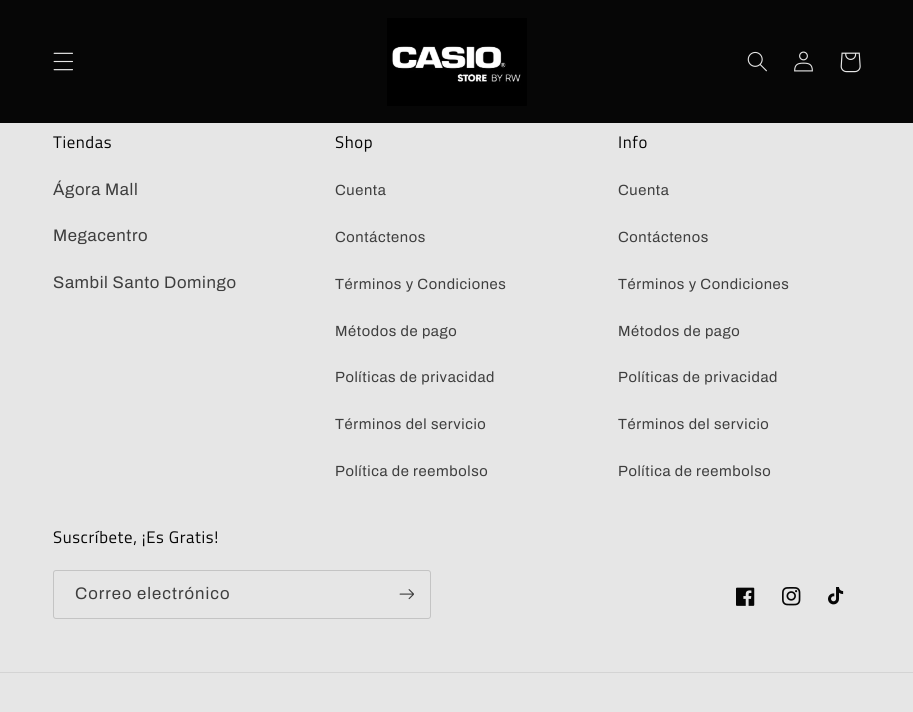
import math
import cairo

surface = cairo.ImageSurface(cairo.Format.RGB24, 913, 712)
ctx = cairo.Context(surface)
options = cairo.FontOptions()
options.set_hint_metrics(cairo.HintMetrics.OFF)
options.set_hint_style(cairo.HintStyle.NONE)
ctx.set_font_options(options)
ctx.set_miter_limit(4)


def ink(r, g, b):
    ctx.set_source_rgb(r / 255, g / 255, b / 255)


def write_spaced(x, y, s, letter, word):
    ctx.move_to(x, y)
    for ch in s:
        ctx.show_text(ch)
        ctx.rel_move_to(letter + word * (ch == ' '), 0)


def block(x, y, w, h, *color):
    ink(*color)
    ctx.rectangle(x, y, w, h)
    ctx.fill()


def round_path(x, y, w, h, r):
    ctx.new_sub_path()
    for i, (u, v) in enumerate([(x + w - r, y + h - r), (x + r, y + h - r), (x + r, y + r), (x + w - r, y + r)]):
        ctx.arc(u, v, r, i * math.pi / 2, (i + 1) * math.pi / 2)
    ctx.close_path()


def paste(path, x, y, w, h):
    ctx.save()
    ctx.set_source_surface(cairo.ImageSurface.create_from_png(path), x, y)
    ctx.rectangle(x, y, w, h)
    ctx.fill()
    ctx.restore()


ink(230, 230, 230)
ctx.paint()
block(0, 0, 913, 123, 6, 6, 6)
paste("pic1.png", 53, 52, 20, 19)
paste("pic2.png", 387, 18, 140, 88)
paste("pic3.png", 747, 51, 20, 21)
paste("pic4.png", 794, 51, 19, 21)
paste("pic5.png", 840, 52, 21, 21)
ctx.select_font_face("Titillium Web")
ctx.set_font_size(16.75)
write_spaced(53, 148, "Tiendas", 0.6, 0)
ctx.select_font_face("Archivo")
ink(62, 62, 62)
write_spaced(53, 195, "Ágora Mall", 0.6, 0)
write_spaced(53, 241, "Megacentro", 0.6, 0)
write_spaced(53, 288, "Sambil Santo Domingo", 0.6, 0)
ctx.select_font_face("Titillium Web")
ink(6, 6, 6)
write_spaced(335, 148, "Shop", 0.6, 0)
ctx.select_font_face("Archivo")
ctx.set_font_size(14.75)
ink(62, 62, 62)
write_spaced(335, 195, "Cuenta", 0.6, 0)
write_spaced(335, 242, "Contáctenos", 0.6, 0)
write_spaced(335, 289, "Términos y Condiciones", 0.6, 0)
write_spaced(335, 336, "Métodos de pago", 0.6, 0)
write_spaced(335, 382, "Políticas de privacidad", 0.6, 0)
write_spaced(335, 429, "Términos del servicio", 0.6, 0)
write_spaced(335, 476, "Política de reembolso", 0.6, 0)
ctx.select_font_face("Titillium Web")
ctx.set_font_size(16.75)
ink(6, 6, 6)
write_spaced(618, 148, "Info", 0.6, 0)
ctx.select_font_face("Archivo")
ctx.set_font_size(14.75)
ink(62, 62, 62)
write_spaced(618, 195, "Cuenta", 0.6, 0)
write_spaced(618, 242, "Contáctenos", 0.6, 0)
write_spaced(618, 289, "Términos y Condiciones", 0.6, 0)
write_spaced(618, 336, "Métodos de pago", 0.6, 0)
write_spaced(618, 382, "Políticas de privacidad", 0.6, 0)
write_spaced(618, 429, "Términos del servicio", 0.6, 0)
write_spaced(618, 476, "Política de reembolso", 0.6, 0)
ctx.select_font_face("Titillium Web")
ctx.set_font_size(16.75)
ink(6, 6, 6)
write_spaced(53, 543, "Suscríbete, ¡Es Gratis!", 0.6, 0)
round_path(53.5, 570.5, 377, 48, 2.5)
ctx.set_source_rgba(0.024, 0.024, 0.024, 0.15)
ctx.set_line_width(1)
ctx.stroke()
ctx.select_font_face("Archivo")
ink(62, 62, 62)
write_spaced(75, 599, "Correo electrónico", 1, 0)
paste("pic6.png", 399, 589, 15, 11)
paste("pic7.png", 736, 587, 19, 19)
paste("pic8.png", 782, 587, 19, 19)
paste("pic9.png", 828, 587, 16, 18)
block(0, 672, 913, 1, 212, 212, 212)
surface.write_to_png("screenshot.png")
